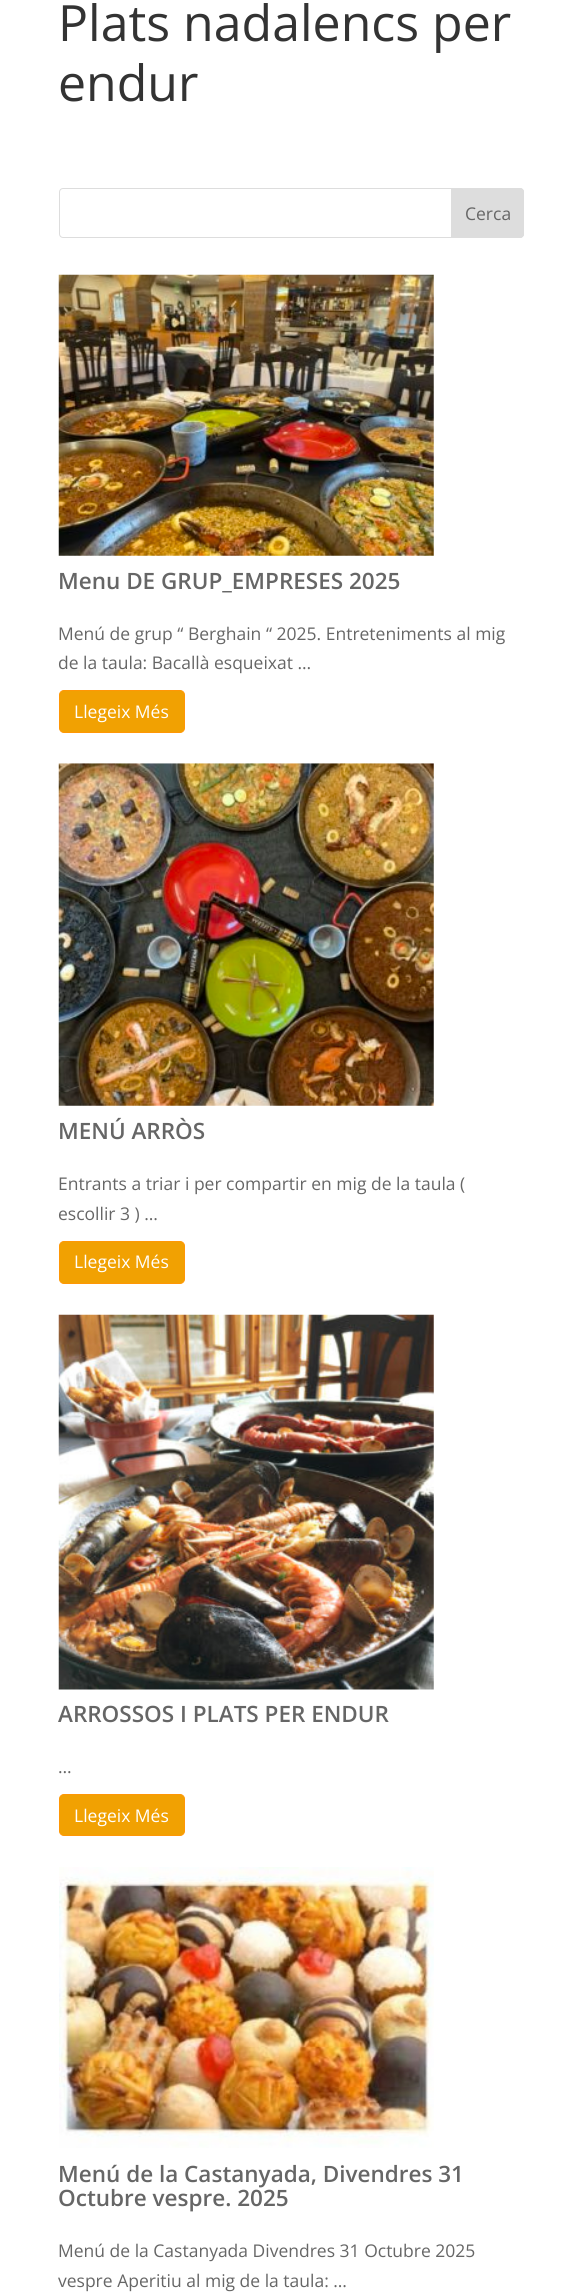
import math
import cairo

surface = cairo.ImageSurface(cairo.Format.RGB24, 582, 2294)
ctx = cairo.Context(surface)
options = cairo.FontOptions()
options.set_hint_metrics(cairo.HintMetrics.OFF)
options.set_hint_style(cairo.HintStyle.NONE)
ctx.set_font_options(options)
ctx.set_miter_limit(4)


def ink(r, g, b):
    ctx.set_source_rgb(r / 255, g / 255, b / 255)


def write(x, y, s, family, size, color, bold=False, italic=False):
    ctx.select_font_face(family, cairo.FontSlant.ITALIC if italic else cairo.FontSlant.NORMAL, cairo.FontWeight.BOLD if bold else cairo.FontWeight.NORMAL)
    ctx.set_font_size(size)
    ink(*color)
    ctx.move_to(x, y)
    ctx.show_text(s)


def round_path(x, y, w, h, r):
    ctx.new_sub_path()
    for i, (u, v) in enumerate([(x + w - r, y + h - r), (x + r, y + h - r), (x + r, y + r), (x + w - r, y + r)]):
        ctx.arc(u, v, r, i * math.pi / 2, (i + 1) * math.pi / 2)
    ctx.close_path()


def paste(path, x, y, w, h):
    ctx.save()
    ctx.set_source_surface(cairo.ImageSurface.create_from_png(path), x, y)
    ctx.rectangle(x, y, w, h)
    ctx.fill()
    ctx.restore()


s1 = dict(family="Open Sans", size=50, color=(51, 51, 51))
s2 = dict(family="Open Sans", size=17.5, color=(102, 102, 102))
s3 = dict(family="Open Sans SemiBold", size=22.5, color=(102, 102, 102))
s4 = dict(family="Open Sans", size=17.5, color=(255, 255, 255))

ink(255, 255, 255)
ctx.paint()
write(58, 41, "Plats nadalencs per", **s1)
write(58, 101, "endur", **s1)
round_path(59.5, 188.5, 464, 49, 3.5)
ink(221, 221, 221)
ctx.set_line_width(1)
ctx.stroke()
ctx.new_path()
ctx.move_to(451.5, 188.5)
ctx.line_to(520, 188.5)
ctx.curve_to(522, 188.5, 523.5, 190, 523.5, 192)
ctx.line_to(523.5, 234)
ctx.curve_to(523.5, 236, 522, 237.5, 520, 237.5)
ctx.line_to(451.5, 237.5)
ctx.close_path()
ctx.fill_preserve()
ctx.stroke()
write(465, 220, "Cerca", **s2)
paste("pic1.png", 58, 274, 376, 282)
write(58, 589, "Menu DE GRUP_EMPRESES 2025", **s3)
write(58, 640, "Menú de grup “ Berghain “ 2025. Entreteniments al mig", **s2)
write(58, 669, "de la taula: Bacallà esqueixat …", **s2)
ink(241, 161, 2)
round_path(59.5, 690.5, 125, 42, 4.5)
ctx.fill_preserve()
ink(255, 151, 5)
ctx.stroke()
write(74, 718, "Llegeix Més", **s4)
paste("pic2.png", 58, 763, 376, 343)
write(58, 1139, "MENÚ ARRÒS", **s3)
write(58, 1190, "Entrants a triar i per compartir en mig de la taula (", **s2)
write(58, 1220, "escollir 3 ) …", **s2)
ink(241, 161, 2)
round_path(59.5, 1241.5, 125, 42, 4.5)
ctx.fill_preserve()
ink(255, 151, 5)
ctx.stroke()
write(74, 1268, "Llegeix Més", **s4)
paste("pic3.png", 58, 1314, 376, 376)
write(58, 1722, "ARROSSOS I PLATS PER ENDUR", **s3)
write(58, 1773, "…", **s2)
ink(241, 161, 2)
round_path(59.5, 1794.5, 125, 41, 4.5)
ctx.fill_preserve()
ink(255, 151, 5)
ctx.stroke()
write(74, 1822, "Llegeix Més", **s4)
paste("pic4.png", 59, 1867, 375, 281)
write(58, 2182, "Menú de la Castanyada, Divendres 31", **s3)
write(58, 2206, "Octubre vespre. 2025", **s3)
write(58, 2257, "Menú de la Castanyada Divendres 31 Octubre 2025", **s2)
write(58, 2287, "vespre Aperitiu al mig de la taula: …", **s2)
surface.write_to_png("screenshot.png")
